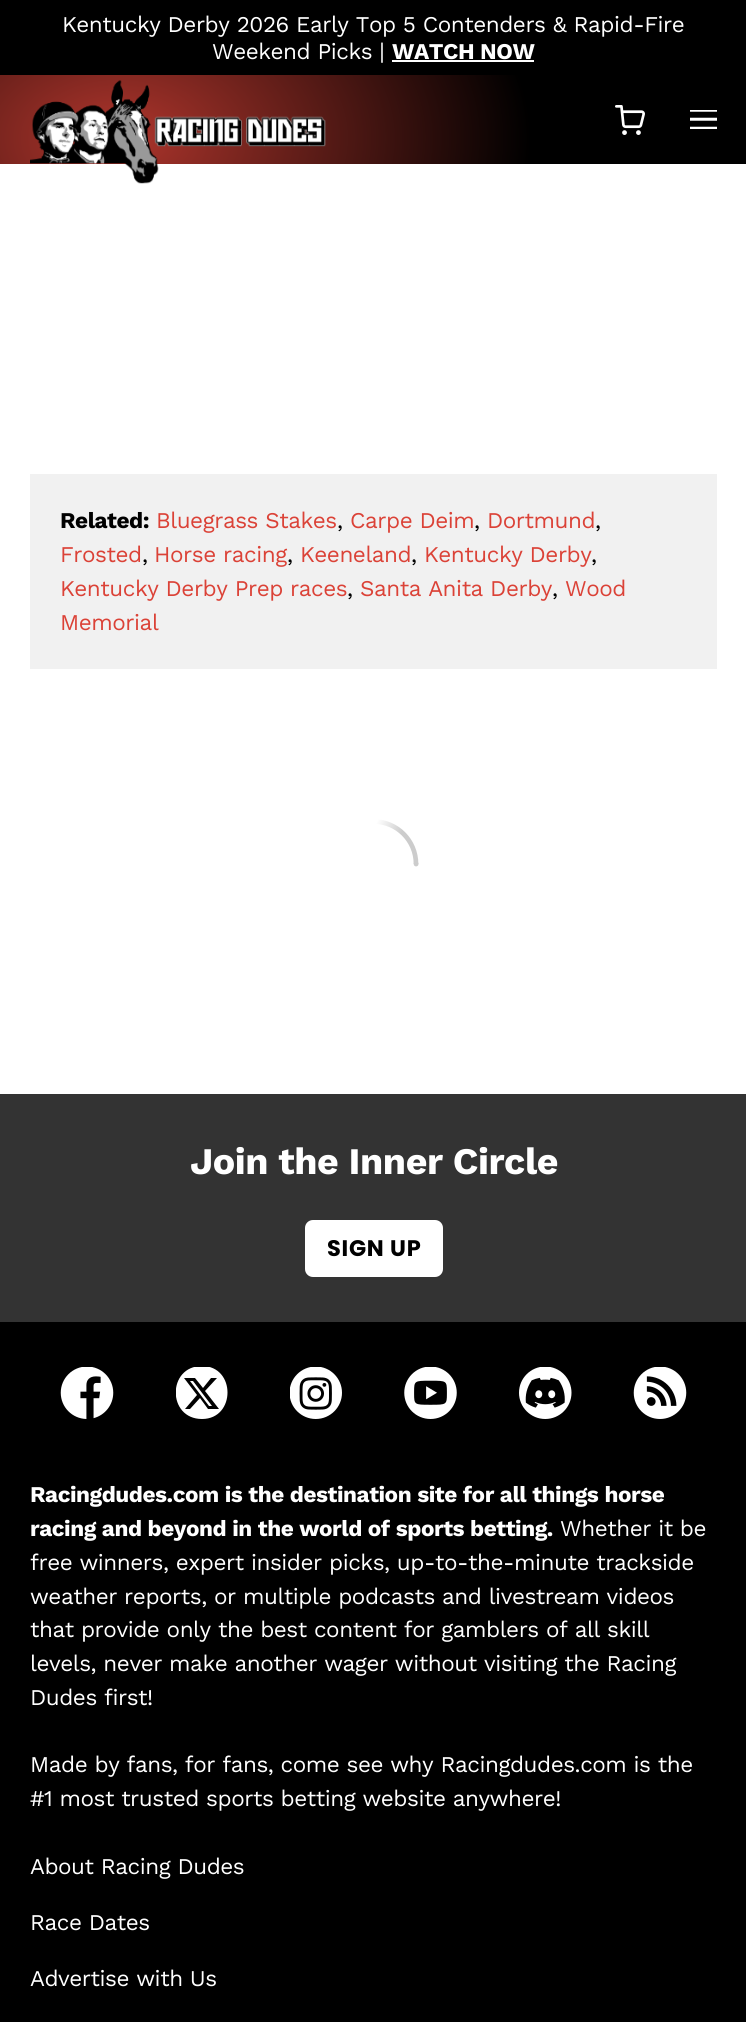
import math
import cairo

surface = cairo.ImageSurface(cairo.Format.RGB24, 746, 2022)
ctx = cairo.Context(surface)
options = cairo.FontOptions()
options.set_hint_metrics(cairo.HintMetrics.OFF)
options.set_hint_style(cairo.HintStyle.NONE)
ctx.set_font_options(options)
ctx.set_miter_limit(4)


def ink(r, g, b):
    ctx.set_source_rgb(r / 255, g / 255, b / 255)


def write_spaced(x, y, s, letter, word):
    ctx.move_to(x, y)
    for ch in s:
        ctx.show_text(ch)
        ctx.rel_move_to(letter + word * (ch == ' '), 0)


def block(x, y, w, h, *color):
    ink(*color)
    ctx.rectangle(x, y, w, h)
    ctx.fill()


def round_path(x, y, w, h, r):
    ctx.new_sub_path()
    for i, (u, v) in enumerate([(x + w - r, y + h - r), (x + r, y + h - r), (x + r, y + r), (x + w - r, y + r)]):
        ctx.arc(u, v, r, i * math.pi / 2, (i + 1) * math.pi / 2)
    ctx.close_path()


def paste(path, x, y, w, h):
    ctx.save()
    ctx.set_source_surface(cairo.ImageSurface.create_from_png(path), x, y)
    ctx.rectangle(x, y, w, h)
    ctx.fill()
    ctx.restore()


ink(255, 255, 255)
ctx.paint()
block(0, 0, 746, 75, 0, 0, 0)
ctx.select_font_face("Work Sans")
ctx.set_font_size(22.5)
ink(255, 255, 255)
write_spaced(62, 32, "Kentucky Derby 2026 Early Top 5 Contenders & Rapid-Fire", -0.45, 0)
write_spaced(212, 59, "Weekend Picks |", -0.45, 0)
ctx.select_font_face("Work Sans", cairo.FontSlant.NORMAL, cairo.FontWeight.BOLD)
write_spaced(392, 59, "WATCH NOW", -0.45, 0)
block(392, 60, 142, 2, 255, 255, 255)
gradient = cairo.RadialGradient(0, 0, 0, 0, 0, 1)
gradient.set_matrix(cairo.Matrix(1 / 411, 0, 0, 1 / 266, -1 * 119 / 411, -1 * 138 / 266))
gradient.add_color_stop_rgba(0, 0.686, 0.208, 0.173, 1)
gradient.add_color_stop_rgba(1, 0, 0, 0, 1)
ctx.set_source(gradient)
ctx.rectangle(0, 75, 746, 89)
ctx.fill()
paste("pic1.png", 30, 80, 296, 104)
paste("pic2.png", 615, 105, 30, 30)
paste("pic3.png", 690, 110, 27, 19)
block(30, 474, 687, 195, 241, 241, 241)
ink(0, 0, 0)
write_spaced(60, 528, "Related:", -0.45, 0)
ctx.select_font_face("Work Sans")
ink(219, 66, 55)
write_spaced(156, 528, "Bluegrass Stakes", -0.45, 0)
ink(0, 0, 0)
write_spaced(337, 528, ",", -0.45, 0)
ink(219, 66, 55)
write_spaced(350, 528, "Carpe Deim", -0.45, 0)
ink(0, 0, 0)
write_spaced(474, 528, ",", -0.45, 0)
ink(219, 66, 55)
write_spaced(487, 528, "Dortmund", -0.45, 0)
ink(0, 0, 0)
write_spaced(595, 528, ",", -0.45, 0)
ink(219, 66, 55)
write_spaced(60, 562, "Frosted", -0.45, 0)
ink(0, 0, 0)
write_spaced(142, 562, ",", -0.45, 0)
ink(219, 66, 55)
write_spaced(154, 562, "Horse racing", -0.45, 0)
ink(0, 0, 0)
write_spaced(287, 562, ",", -0.45, 0)
ink(219, 66, 55)
write_spaced(300, 562, "Keeneland", -0.45, 0)
ink(0, 0, 0)
write_spaced(411, 562, ",", -0.45, 0)
ink(219, 66, 55)
write_spaced(424, 562, "Kentucky Derby", -0.45, 0)
ink(0, 0, 0)
write_spaced(591, 562, ",", -0.45, 0)
ink(219, 66, 55)
write_spaced(60, 596, "Kentucky Derby Prep races", -0.45, 0)
ink(0, 0, 0)
write_spaced(347, 596, ",", -0.45, 0)
ink(219, 66, 55)
write_spaced(360, 596, "Santa Anita Derby", -0.45, 0)
ink(0, 0, 0)
write_spaced(552, 596, ",", -0.45, 0)
ink(219, 66, 55)
write_spaced(565, 596, "Wood", -0.45, 0)
write_spaced(60, 630, "Memorial", -0.45, 0)
ctx.new_path()
ctx.move_to(416, 864)
ctx.curve_to(416, 840.5, 397, 821.5, 373.5, 821.5)
gradient = cairo.LinearGradient(377, 821, 402, 832)
gradient.add_color_stop_rgba(0, 1, 1, 1, 1)
gradient.add_color_stop_rgba(0.63, 0.875, 0.875, 0.875, 1)
gradient.add_color_stop_rgba(1, 0.8, 0.8, 0.8, 1)
ctx.set_source(gradient)
ctx.set_line_width(4.7)
ctx.stroke()
ink(204, 204, 204)
ctx.arc(416.1, 864, 2.4, 0, 2 * math.pi)
ctx.fill()
block(0, 1094, 746, 228, 51, 51, 51)
ctx.select_font_face("Work Sans", cairo.FontSlant.NORMAL, cairo.FontWeight.BOLD)
ctx.set_font_size(37.5)
ink(255, 255, 255)
write_spaced(190, 1174, "Join the Inner Circle", -0.45, 0)
round_path(305, 1220, 138, 57, 8)
ctx.fill()
ctx.select_font_face("Poppins", cairo.FontSlant.NORMAL, cairo.FontWeight.BOLD)
ctx.set_font_size(22.5)
ink(0, 0, 0)
write_spaced(327, 1256, "SIGN UP", 0.75, 0)
block(0, 1322, 746, 700, 0, 0, 0)
paste("pic4.png", 60, 1367, 54, 52)
ctx.save()
ctx.rectangle(176, 1367, 52, 52)
ctx.clip()
ink(255, 255, 255)
ctx.new_path()
ctx.move_to(202, 1366)
ctx.curve_to(236, 1366, 236, 1419, 202, 1419)
ctx.curve_to(167, 1419, 167, 1366, 202, 1366)
ctx.close_path()
ctx.move_to(195, 1378)
ctx.line_to(184, 1378)
ctx.line_to(197, 1395)
ctx.line_to(185, 1409)
ctx.line_to(190, 1409)
ctx.line_to(200, 1398)
ctx.line_to(208, 1409)
ctx.line_to(219, 1409)
ctx.line_to(205, 1391)
ctx.line_to(217, 1378)
ctx.line_to(211, 1378)
ctx.line_to(203, 1388)
ctx.close_path()
ctx.move_to(193, 1381)
ctx.line_to(212, 1406)
ctx.line_to(209, 1406)
ctx.line_to(190, 1381)
ctx.close_path()
ctx.fill()
ctx.restore()
paste("pic5.png", 290, 1367, 52, 52)
paste("pic6.png", 404, 1367, 53, 52)
paste("pic7.png", 519, 1367, 53, 52)
paste("pic8.png", 633, 1367, 54, 52)
ctx.select_font_face("Work Sans", cairo.FontSlant.NORMAL, cairo.FontWeight.BOLD)
ink(255, 255, 255)
write_spaced(30, 1502, "Racingdudes.com is the destination site for all things horse", -0.45, 0)
write_spaced(30, 1536, "racing and beyond in the world of sports betting.", -0.45, 0)
ctx.select_font_face("Work Sans")
write_spaced(560, 1536, "Whether it be", -0.45, 0)
write_spaced(30, 1570, "free winners, expert insider picks, up-to-the-minute trackside", -0.45, 0)
write_spaced(30, 1604, "weather reports, or multiple podcasts and livestream videos", -0.45, 0)
write_spaced(30, 1637, "that provide only the best content for gamblers of all skill", -0.45, 0)
write_spaced(30, 1671, "levels, never make another wager without visiting the Racing", -0.45, 0)
write_spaced(30, 1705, "Dudes first!", -0.45, 0)
write_spaced(30, 1772, "Made by fans, for fans, come see why Racingdudes.com is the", -0.45, 0)
write_spaced(30, 1806, "#1 most trusted sports betting website anywhere!", -0.45, 0)
write_spaced(30, 1874, "About Racing Dudes", -0.45, 0)
write_spaced(30, 1930, "Race Dates", -0.45, 0)
write_spaced(30, 1986, "Advertise with Us", -0.45, 0)
surface.write_to_png("screenshot.png")
